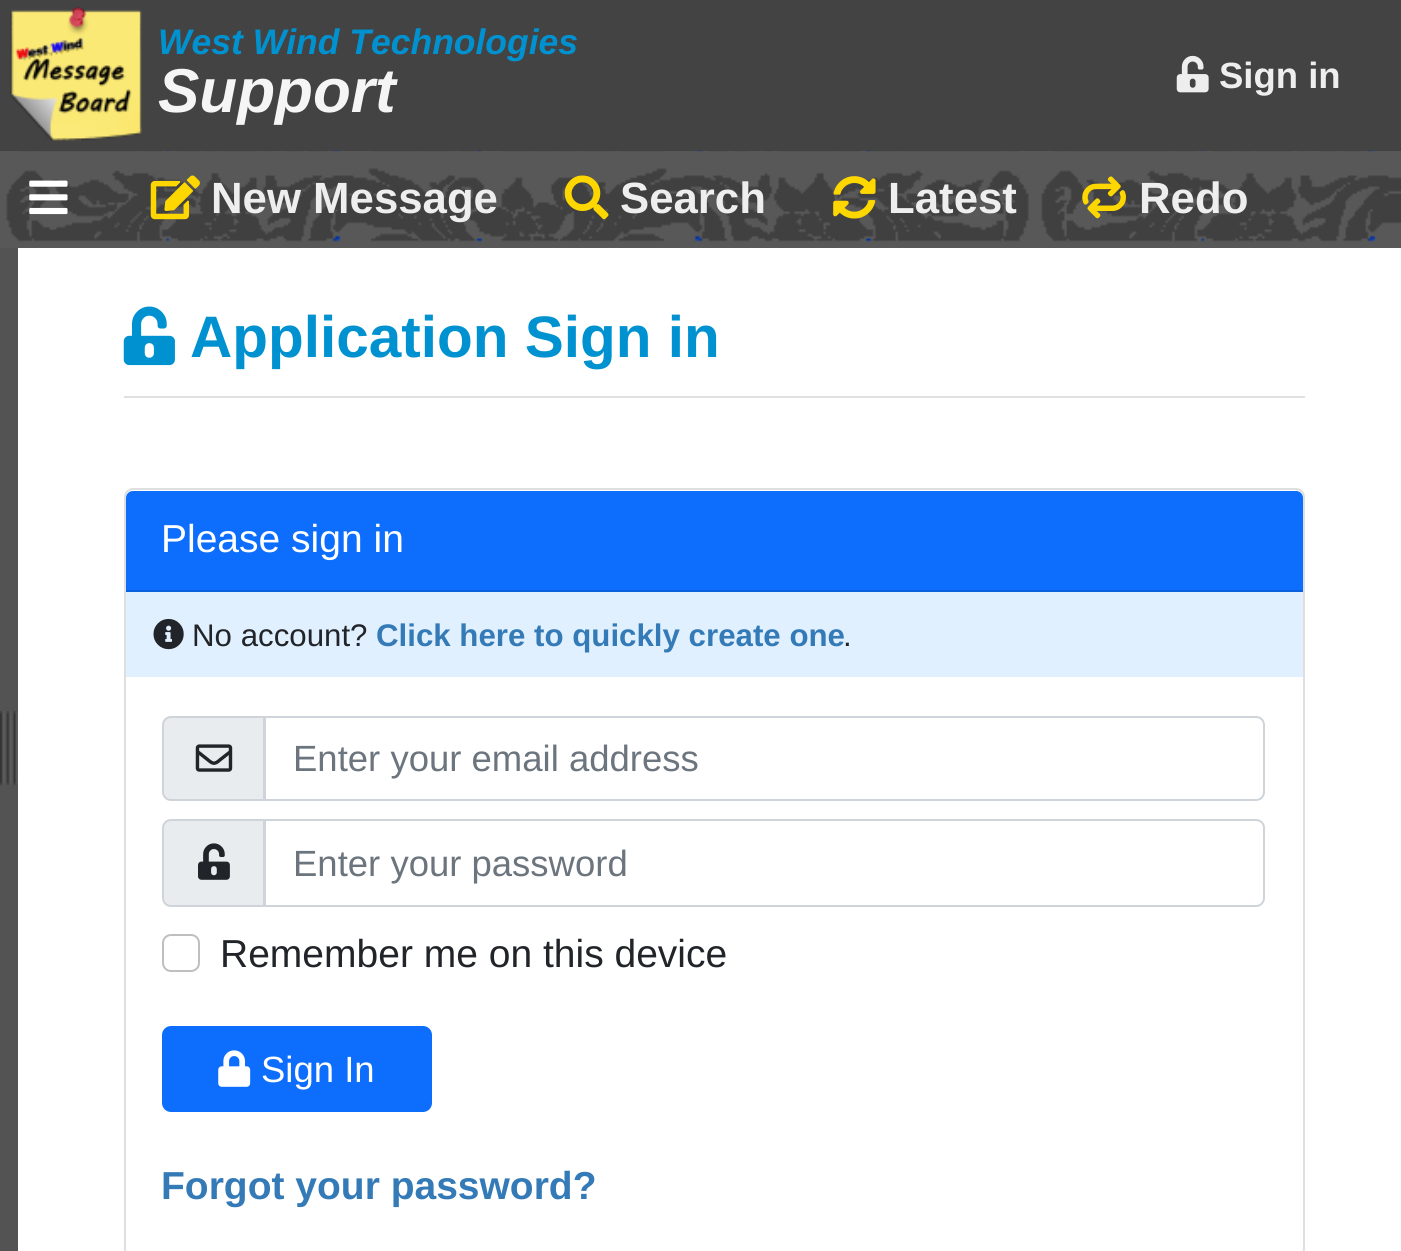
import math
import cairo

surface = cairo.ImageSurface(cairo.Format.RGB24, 1401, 1251)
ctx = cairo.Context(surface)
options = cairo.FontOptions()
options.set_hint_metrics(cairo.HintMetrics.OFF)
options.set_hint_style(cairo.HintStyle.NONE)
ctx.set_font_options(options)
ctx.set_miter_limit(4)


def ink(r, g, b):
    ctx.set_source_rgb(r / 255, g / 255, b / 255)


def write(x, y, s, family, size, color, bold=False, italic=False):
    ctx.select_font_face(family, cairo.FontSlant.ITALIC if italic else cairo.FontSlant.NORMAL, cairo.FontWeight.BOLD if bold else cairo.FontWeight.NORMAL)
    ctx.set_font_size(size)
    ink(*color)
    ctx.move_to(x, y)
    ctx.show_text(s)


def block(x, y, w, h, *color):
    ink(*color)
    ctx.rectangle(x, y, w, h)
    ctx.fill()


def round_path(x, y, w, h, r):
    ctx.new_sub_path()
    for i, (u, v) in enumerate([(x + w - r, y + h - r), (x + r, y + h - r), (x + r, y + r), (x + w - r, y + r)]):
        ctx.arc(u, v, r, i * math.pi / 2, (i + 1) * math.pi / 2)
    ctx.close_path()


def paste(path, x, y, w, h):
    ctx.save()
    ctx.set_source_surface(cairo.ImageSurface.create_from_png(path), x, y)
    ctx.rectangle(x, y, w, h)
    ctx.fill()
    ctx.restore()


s1 = dict(family="Liberation Sans", size=35.5, color=(0, 146, 208), bold=True, italic=True)
s2 = dict(family="Liberation Sans", size=62, color=(245, 245, 245), bold=True, italic=True)
s3 = dict(family="Liberation Sans", size=36.5, color=(238, 238, 238), bold=True)
s4 = dict(family="Liberation Sans", size=43.75, color=(238, 238, 238), bold=True)
s5 = dict(family="Liberation Sans", size=58.5, color=(0, 146, 208), bold=True)
s6 = dict(family="Liberation Sans", size=39, color=(255, 255, 255))
s7 = dict(family="Liberation Sans", size=31.25, color=(33, 37, 41))
s8 = dict(family="Liberation Sans", size=31.25, color=(51, 122, 183), bold=True)
s9 = dict(family="Liberation Sans", size=36.5, color=(108, 117, 125))
s10 = dict(family="Liberation Sans", size=39, color=(33, 37, 41))
s11 = dict(family="Liberation Sans", size=36.5, color=(255, 255, 255))
s12 = dict(family="Liberation Sans", size=39, color=(51, 122, 183), bold=True)

ink(255, 255, 255)
ctx.paint()
block(0, 0, 1401, 151, 67, 67, 67)
paste("pic1.png", 10, 6, 132, 135)
write(158, 54, "West Wind Technologies", **s1)
write(158, 112, "Support", **s2)
paste("pic2.png", 1176, 55, 33, 38)
write(1219, 88, "Sign in", **s3)
block(0, 151, 1401, 97, 88, 88, 88)
paste("pic3.png", 6, 150, 1395, 92)
paste("pic4.png", 29, 180, 39, 35)
paste("pic5.png", 150, 175, 50, 45)
write(211, 213, "New Message", **s4)
paste("pic6.png", 564, 175, 45, 45)
write(620, 213, "Search", **s4)
paste("pic7.png", 833, 176, 43, 43)
write(888, 213, "Latest", **s4)
paste("pic8.png", 1082, 176, 44, 43)
write(1139, 213, "Redo", **s4)
block(0, 248, 18, 1003, 83, 83, 83)
paste("pic9.png", 0, 711, 18, 75)
block(124, 396, 1181, 2, 225, 225, 225)
paste("pic10.png", 123, 306, 52, 60)
write(190, 357, "Application Sign in", **s5)
round_path(125, 489, 1179, 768, 8)
ink(223, 223, 223)
ctx.stroke()
ink(13, 110, 253)
ctx.new_path()
ctx.move_to(133, 491)
ctx.line_to(1296, 491)
ctx.curve_to(1300, 491, 1303, 494, 1303, 498)
ctx.line_to(1303, 592)
ctx.line_to(126, 592)
ctx.line_to(126, 498)
ctx.curve_to(126, 494, 129, 491, 133, 491)
ctx.close_path()
ctx.fill()
block(126, 590, 1177, 2, 11, 96, 221)
write(161, 552, "Please sign in", **s6)
block(126, 592, 1177, 85, 225, 240, 255)
paste("pic11.png", 153, 618, 31, 32)
write(192, 646, "No account?", **s7)
write(376, 646, "Click here to quickly create one", **s8)
write(843, 646, ".", **s7)
ink(233, 236, 239)
ctx.new_path()
ctx.move_to(171, 717)
ctx.line_to(265, 717)
ctx.line_to(265, 800)
ctx.line_to(171, 800)
ctx.curve_to(166.5, 800, 163, 796.5, 163, 792)
ctx.line_to(163, 725)
ctx.curve_to(163, 720.5, 166.5, 717, 171, 717)
ctx.close_path()
ctx.fill_preserve()
ink(206, 212, 218)
ctx.stroke()
paste("pic12.png", 195, 744, 38, 28)
ctx.new_path()
ctx.move_to(264, 717)
ctx.line_to(1256, 717)
ctx.curve_to(1260.5, 717, 1264, 720.5, 1264, 725)
ctx.line_to(1264, 792)
ctx.curve_to(1264, 796.5, 1260.5, 800, 1256, 800)
ctx.line_to(264, 800)
ctx.close_path()
ctx.stroke()
write(293, 771, "Enter your email address", **s9)
ink(233, 236, 239)
ctx.new_path()
ctx.move_to(171, 820)
ctx.line_to(265, 820)
ctx.line_to(265, 906)
ctx.line_to(171, 906)
ctx.curve_to(166.5, 906, 163, 902.5, 163, 898)
ctx.line_to(163, 828)
ctx.curve_to(163, 823.5, 166.5, 820, 171, 820)
ctx.close_path()
ctx.fill_preserve()
ink(206, 212, 218)
ctx.stroke()
paste("pic13.png", 198, 843, 32, 37)
ctx.new_path()
ctx.move_to(264, 820)
ctx.line_to(1256, 820)
ctx.curve_to(1260.5, 820, 1264, 823.5, 1264, 828)
ctx.line_to(1264, 898)
ctx.curve_to(1264, 902.5, 1260.5, 906, 1256, 906)
ctx.line_to(264, 906)
ctx.close_path()
ctx.stroke()
write(293, 876, "Enter your password", **s9)
round_path(163, 935, 36, 36, 8)
ink(191, 191, 191)
ctx.stroke()
write(220, 967, "Remember me on this device", **s10)
ink(13, 110, 253)
round_path(163, 1027, 268, 84, 8)
ctx.fill_preserve()
ctx.stroke()
paste("pic14.png", 218, 1050, 33, 37)
write(261, 1082, "Sign In", **s11)
write(161, 1199, "Forgot your password?", **s12)
surface.write_to_png("screenshot.png")
